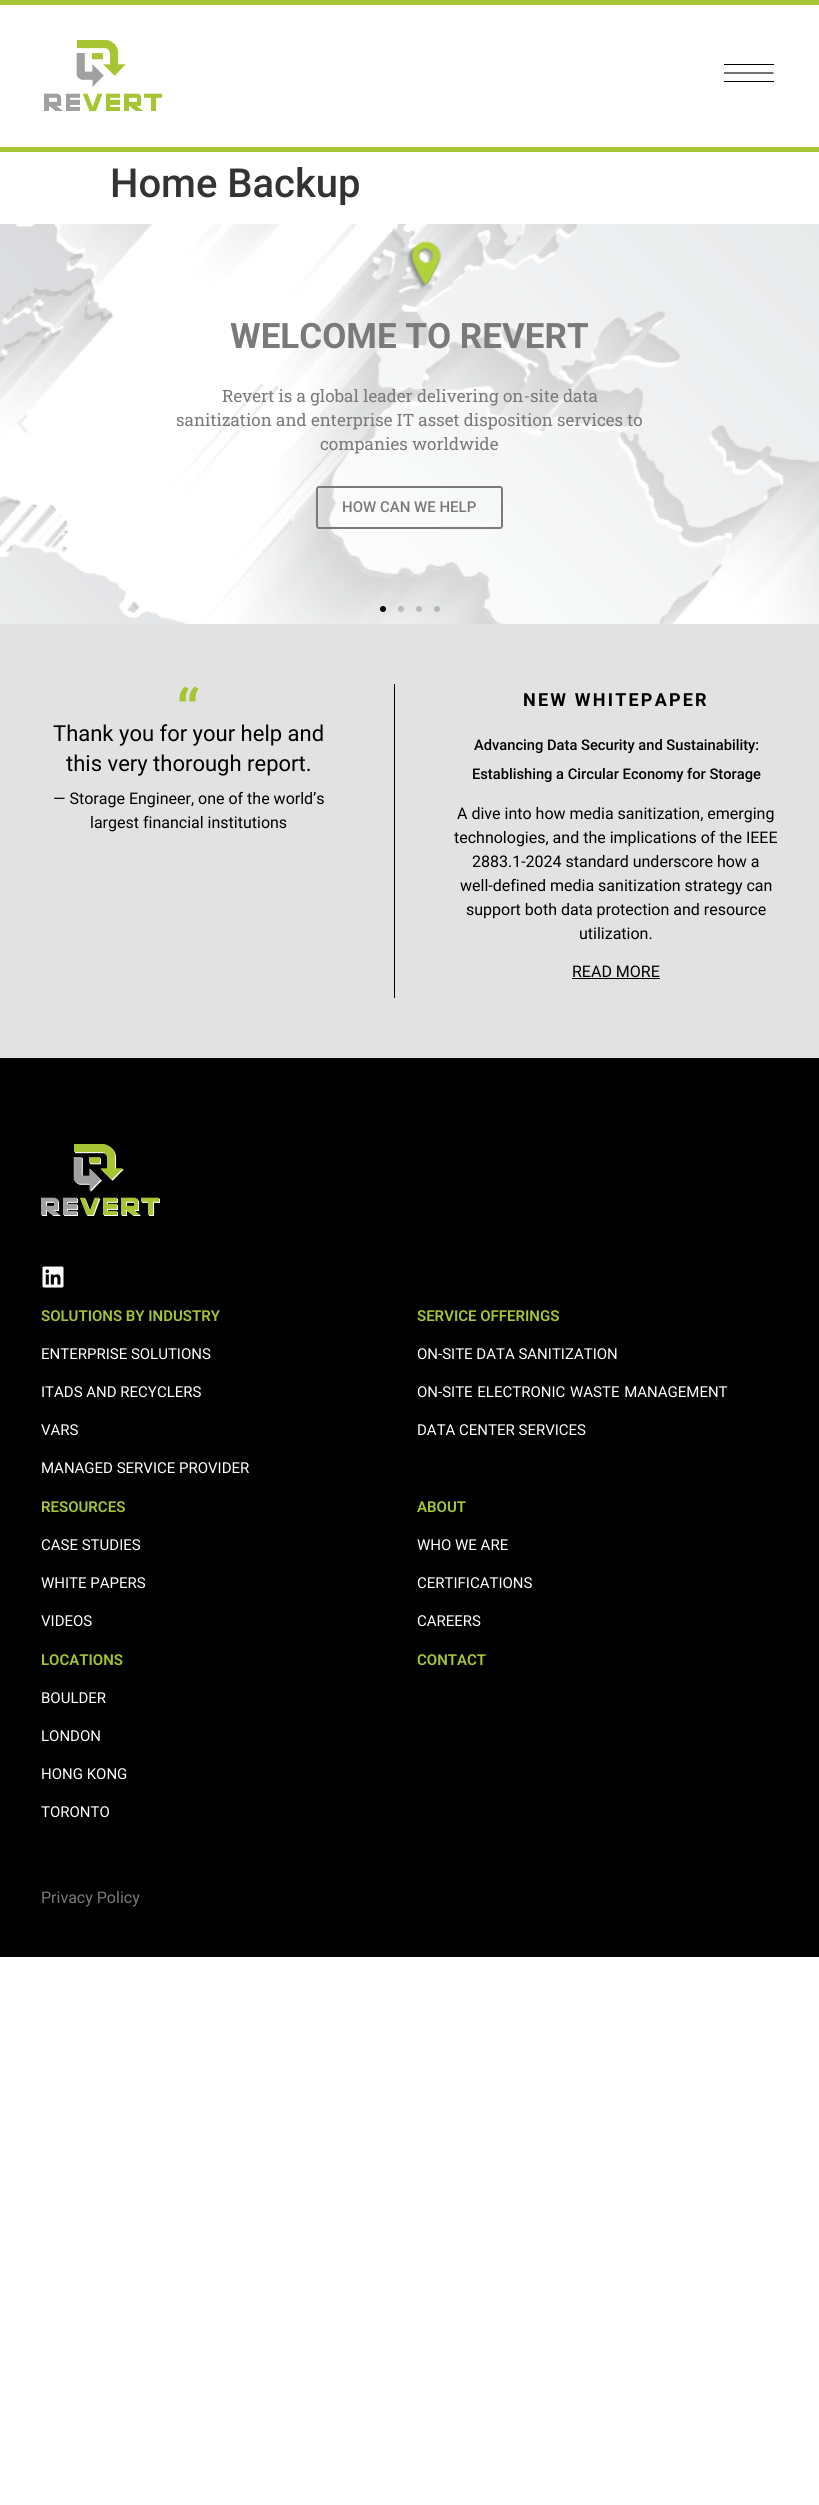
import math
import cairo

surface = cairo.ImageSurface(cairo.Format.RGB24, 819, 2505)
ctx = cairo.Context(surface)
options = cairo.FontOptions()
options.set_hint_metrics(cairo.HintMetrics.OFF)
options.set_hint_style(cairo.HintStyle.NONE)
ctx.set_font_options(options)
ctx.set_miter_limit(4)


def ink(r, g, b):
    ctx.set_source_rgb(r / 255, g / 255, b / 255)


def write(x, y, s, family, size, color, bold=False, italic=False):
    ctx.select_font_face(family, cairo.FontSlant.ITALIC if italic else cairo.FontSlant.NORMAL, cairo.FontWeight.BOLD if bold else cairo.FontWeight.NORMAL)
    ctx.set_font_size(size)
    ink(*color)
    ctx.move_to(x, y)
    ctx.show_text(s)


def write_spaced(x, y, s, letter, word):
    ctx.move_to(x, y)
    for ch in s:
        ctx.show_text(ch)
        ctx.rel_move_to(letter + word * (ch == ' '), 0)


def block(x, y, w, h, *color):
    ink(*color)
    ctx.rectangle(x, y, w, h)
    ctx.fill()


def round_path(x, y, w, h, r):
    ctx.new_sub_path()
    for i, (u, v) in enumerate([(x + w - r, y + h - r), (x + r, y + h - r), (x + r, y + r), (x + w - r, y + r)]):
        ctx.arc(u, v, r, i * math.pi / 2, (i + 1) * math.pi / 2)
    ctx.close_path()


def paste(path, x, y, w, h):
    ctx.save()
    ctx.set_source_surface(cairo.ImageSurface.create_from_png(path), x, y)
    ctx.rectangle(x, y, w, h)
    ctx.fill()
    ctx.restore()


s1 = dict(family="Roboto Medium", size=40, color=(51, 51, 51))
s2 = dict(family="Roboto", size=35, color=(122, 122, 122), bold=True)
s3 = dict(family="Roboto Slab", size=17, color=(122, 122, 122))
s4 = dict(family="Roboto Medium", size=15, color=(122, 122, 122))
s5 = dict(family="Roboto", size=22, color=(0, 0, 0))
s6 = dict(family="Roboto", size=16, color=(0, 0, 0))
s7 = dict(family="Roboto Medium", size=14.7, color=(0, 0, 0))
s8 = dict(family="Roboto SemiBold", size=15, color=(167, 197, 50))
s9 = dict(family="Roboto", size=15, color=(255, 255, 255))
s10 = dict(family="Roboto", size=16, color=(122, 122, 122))

ink(255, 255, 255)
ctx.paint()
block(0, 0, 819, 5, 167, 197, 50)
block(0, 147, 819, 5, 167, 197, 50)
paste("pic1.png", 44, 40, 118, 71)
block(724, 64, 50, 1, 0, 0, 0)
ctx.new_path()
ctx.move_to(724, 73)
ctx.line_to(773.5, 73)
ctx.set_line_width(1.1)
ctx.stroke()
block(724, 81, 50, 1, 0, 0, 0)
write(110, 197, "Home Backup", **s1)
paste("pic3.png", 0, 224, 819, 400)
paste("pic2.png", 17, 414, 11, 19)
write(230, 348, "WELCOME TO REVERT", **s2)
write(222, 402, "Revert is a global leader delivering on-site data", **s3)
write(176, 426, "sanitization and enterprise IT asset disposition services to", **s3)
write(320, 450, "companies worldwide", **s3)
round_path(317, 487, 185, 41, 2)
ctx.set_line_width(2)
ctx.stroke()
write(342, 512, "HOW CAN WE HELP", **s4)
ink(0, 0, 0)
ctx.new_path()
ctx.arc(383, 609, 3, 0, 2 * math.pi)
ctx.fill()
ink(185, 185, 185)
ctx.arc(401, 609, 3, 0, 2 * math.pi)
ctx.fill()
ctx.set_source_rgba(0, 0, 0, 0.2)
ctx.arc(419, 609, 3, 0, 2 * math.pi)
ctx.fill()
ink(181, 182, 182)
ctx.arc(437, 609, 3, 0, 2 * math.pi)
ctx.fill()
block(0, 624, 819, 434, 226, 226, 226)
paste("pic4.png", 179, 686, 20, 16)
write(53, 741, "Thank you for your help and", **s5)
write(66, 771, "this very thorough report.", **s5)
write(53, 804, "— Storage Engineer, one of the world’s", **s6)
write(90, 828, "largest financial institutions", **s6)
block(394, 684, 1, 314, 0, 0, 0)
ctx.select_font_face("Roboto", cairo.FontSlant.NORMAL, cairo.FontWeight.BOLD)
ctx.set_font_size(18)
write_spaced(523, 706, "NEW WHITEPAPER", 2.2, 0)
write(474, 750, "Advancing Data Security and Sustainability:", **s7)
write(472, 779, "Establishing a Circular Economy for Storage", **s7)
write(457, 819, "A dive into how media sanitization, emerging", **s6)
write(454, 843, "technologies, and the implications of the IEEE", **s6)
write(472, 867, "2883.1-2024 standard underscore how a", **s6)
write(460, 891, "well-defined media sanitization strategy can", **s6)
write(466, 915, "support both data protection and resource", **s6)
write(579, 939, "utilization.", **s6)
write(572, 977, "READ MORE", **s6)
block(572, 978, 88, 1, 0, 0, 0)
block(0, 1058, 819, 899, 0, 0, 0)
paste("pic5.png", 41, 1144, 119, 72)
paste("pic6.png", 42, 1266, 22, 22)
write(41, 1321, "SOLUTIONS BY INDUSTRY", **s8)
write(41, 1359, "ENTERPRISE SOLUTIONS", **s9)
write(41, 1397, "ITADS AND RECYCLERS", **s9)
write(41, 1435, "VARS", **s9)
write(41, 1473, "MANAGED SERVICE PROVIDER", **s9)
write(417, 1321, "SERVICE OFFERINGS", **s8)
write(417, 1359, "ON-SITE DATA SANITIZATION", **s9)
write_spaced(417, 1397, "ON-SITE ELECTRONIC WASTE MANAGEMENT", 0, 1)
write(417, 1435, "DATA CENTER SERVICES", **s9)
write(41, 1512, "RESOURCES", **s8)
write(41, 1550, "CASE STUDIES", **s9)
write(41, 1588, "WHITE PAPERS", **s9)
write(41, 1626, "VIDEOS", **s9)
write(417, 1512, "ABOUT", **s8)
write(417, 1550, "WHO WE ARE", **s9)
write(417, 1588, "CERTIFICATIONS", **s9)
write(417, 1626, "CAREERS", **s9)
write(41, 1665, "LOCATIONS", **s8)
write(41, 1703, "BOULDER", **s9)
write(41, 1741, "LONDON", **s9)
write(41, 1779, "HONG KONG", **s9)
write(41, 1817, "TORONTO", **s9)
write(417, 1665, "CONTACT", **s8)
write(41, 1903, "Privacy Policy", **s10)
surface.write_to_png("screenshot.png")
